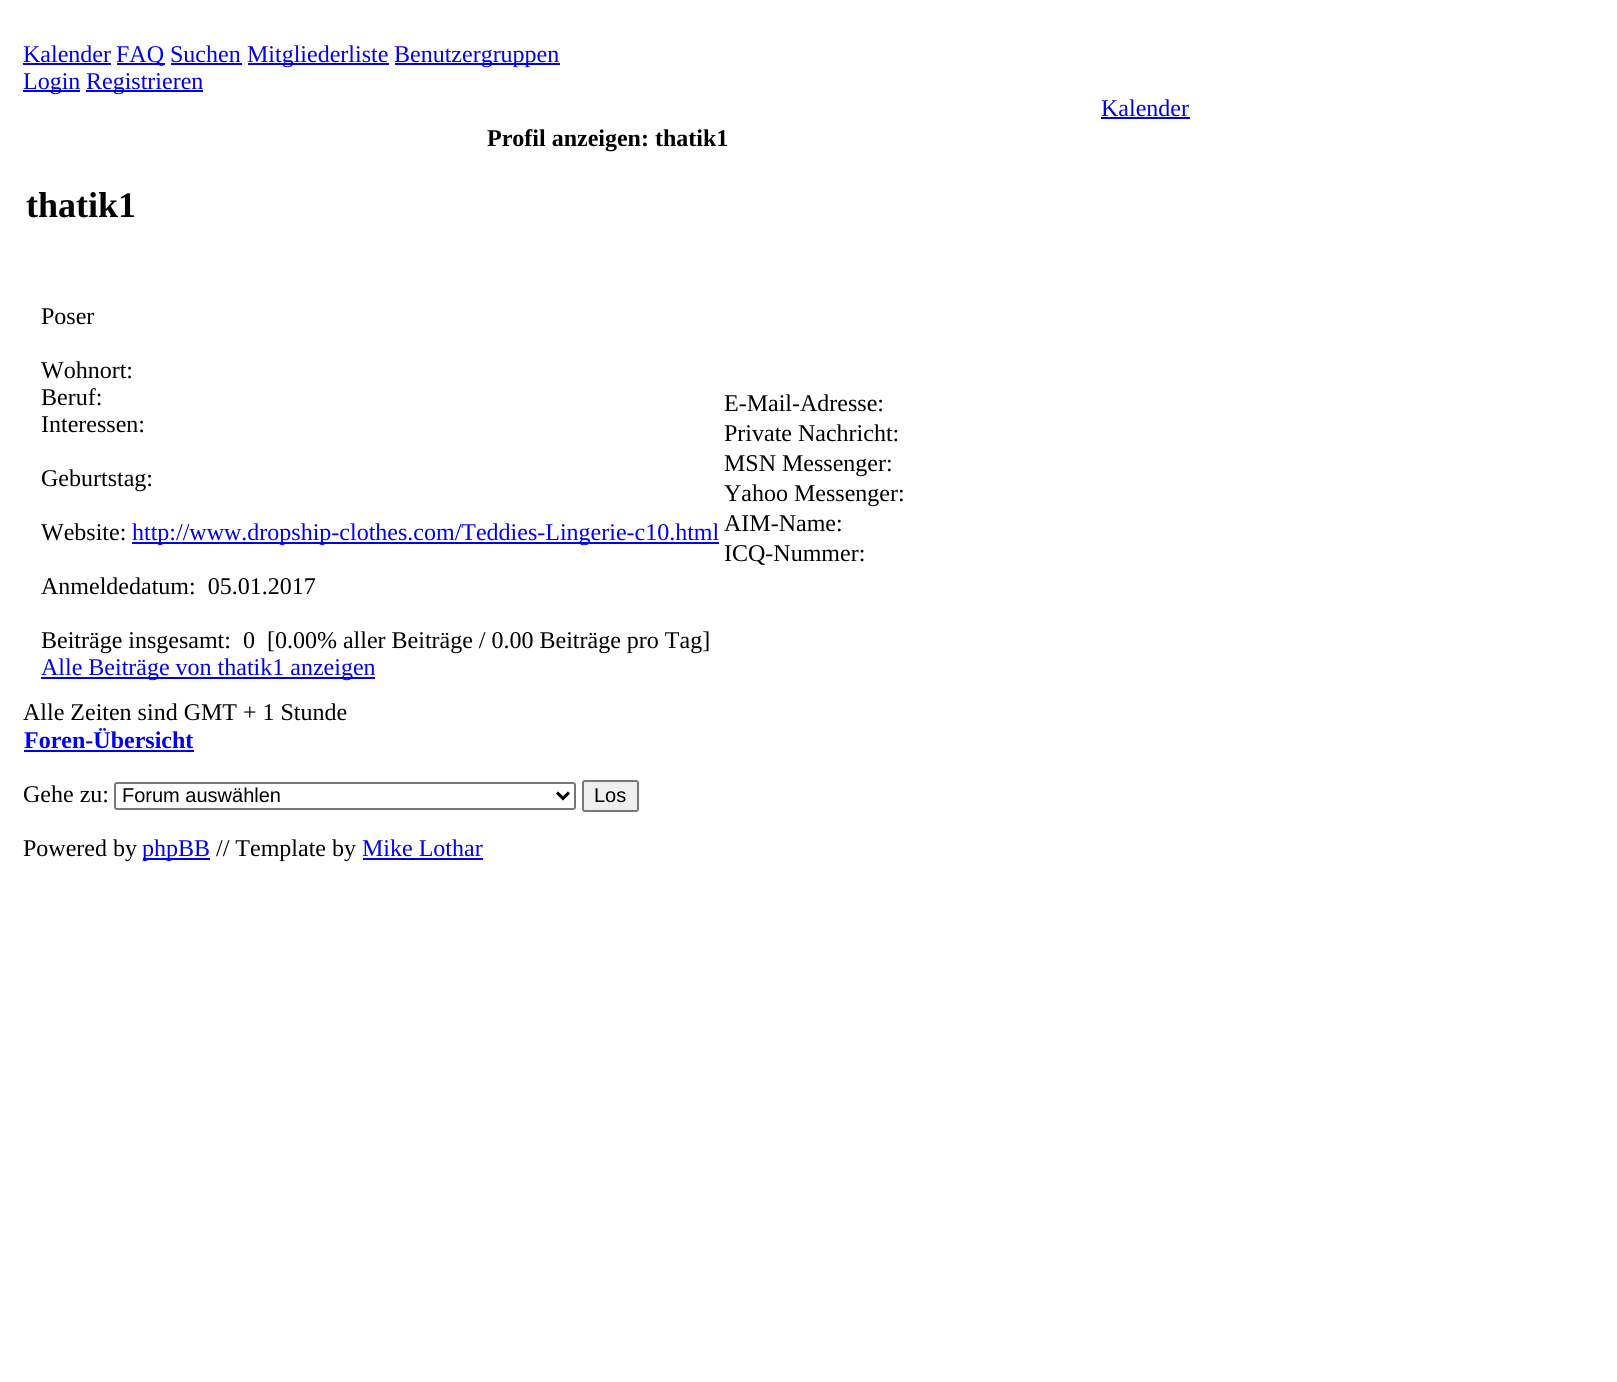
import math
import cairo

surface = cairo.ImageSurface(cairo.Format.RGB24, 1617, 1382)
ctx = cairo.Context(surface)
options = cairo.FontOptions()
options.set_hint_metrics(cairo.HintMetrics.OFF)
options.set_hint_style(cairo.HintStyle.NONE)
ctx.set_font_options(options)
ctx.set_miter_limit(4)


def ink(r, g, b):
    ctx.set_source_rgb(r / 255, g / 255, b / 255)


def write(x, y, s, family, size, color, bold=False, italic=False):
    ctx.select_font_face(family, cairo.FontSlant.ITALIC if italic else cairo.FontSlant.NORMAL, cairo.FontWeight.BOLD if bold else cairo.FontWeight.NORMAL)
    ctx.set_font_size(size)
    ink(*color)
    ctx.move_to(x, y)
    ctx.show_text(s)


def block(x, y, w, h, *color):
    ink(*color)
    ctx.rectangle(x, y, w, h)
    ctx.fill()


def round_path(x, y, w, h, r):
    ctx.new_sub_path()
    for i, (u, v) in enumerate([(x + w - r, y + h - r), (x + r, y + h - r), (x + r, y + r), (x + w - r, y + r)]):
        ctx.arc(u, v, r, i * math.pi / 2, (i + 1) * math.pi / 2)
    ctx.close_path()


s1 = dict(family="Liberation Serif", size=24, color=(0, 0, 238))
s2 = dict(family="Liberation Serif", size=24, color=(0, 0, 0), bold=True)
s3 = dict(family="Liberation Serif", size=36, color=(0, 0, 0), bold=True)
s4 = dict(family="Liberation Serif", size=24, color=(0, 0, 0))
s5 = dict(family="Liberation Serif", size=24, color=(0, 0, 238), bold=True)
s6 = dict(family="Liberation Sans", size=20, color=(0, 0, 0))

ink(255, 255, 255)
ctx.paint()
write(23, 62, "Kalender", **s1)
block(23, 63, 88, 2, 0, 0, 238)
block(117, 63, 48, 2, 0, 0, 238)
write(116, 62, "FAQ Suchen", **s1)
block(248, 63, 141, 2, 0, 0, 238)
write(247, 62, "Mitgliederliste", **s1)
block(395, 63, 165, 2, 0, 0, 238)
write(394, 62, "Benutzergruppen", **s1)
block(171, 63, 71, 2, 0, 0, 238)
block(23, 90, 57, 2, 0, 0, 238)
write(23, 89, "Login", **s1)
block(86, 90, 117, 2, 0, 0, 238)
write(86, 89, "Registrieren", **s1)
write(1101, 116, "Kalender", **s1)
block(1101, 117, 89, 2, 0, 0, 238)
write(487, 146, "Profil anzeigen: thatik1", **s2)
write(26, 217, "thatik1", **s3)
write(41, 324, "Poser", **s4)
write(41, 378, "Wohnort:", **s4)
write(41, 405, "Beruf:", **s4)
write(41, 432, "Interessen:", **s4)
write(41, 486, "Geburtstag:", **s4)
write(41, 540, "Website:", **s4)
block(132, 542, 587, 2, 0, 0, 238)
write(132, 540, "http://www.dropship-clothes.com/Teddies-Lingerie-c10.html", **s1)
write(41, 594, "Anmeldedatum:  05.01.2017", **s4)
write(41, 648, "Beiträge insgesamt:  0  [0.00% aller Beiträge / 0.00 Beiträge pro Tag]", **s4)
block(41, 677, 334, 2, 0, 0, 238)
write(41, 675, "Alle Beiträge von thatik1 anzeigen", **s1)
write(724, 411, "E-Mail-Adresse:", **s4)
write(724, 441, "Private Nachricht:", **s4)
write(724, 471, "MSN Messenger:", **s4)
write(724, 501, "Yahoo Messenger:", **s4)
write(724, 531, "AIM-Name:", **s4)
write(724, 561, "ICQ-Nummer:", **s4)
write(23, 720, "Alle Zeiten sind GMT + 1 Stunde", **s4)
write(24, 748, "Foren-Übersicht", **s5)
block(24, 750, 170, 2, 0, 0, 238)
write(23, 802, "Gehe zu:", **s4)
round_path(115, 783, 460, 26, 2)
ink(118, 118, 118)
ctx.stroke()
ctx.new_path()
ctx.move_to(557, 792.5)
ctx.line_to(563, 798.5)
ctx.line_to(569, 792.5)
ink(0, 0, 0)
ctx.set_line_width(3)
ctx.stroke()
write(122, 802, "Forum auswählen", **s6)
ink(239, 239, 239)
round_path(583, 781, 55, 30, 2)
ctx.fill_preserve()
ink(118, 118, 118)
ctx.set_line_width(2)
ctx.stroke()
write(594, 802, "Los", **s6)
write(23, 856, "Powered by", **s4)
block(143, 858, 67, 2, 0, 0, 238)
write(142, 856, "phpBB", **s1)
write(216, 856, "// Template by", **s4)
write(362, 856, "Mike Lothar", **s1)
block(363, 858, 120, 2, 0, 0, 238)
surface.write_to_png("screenshot.png")
